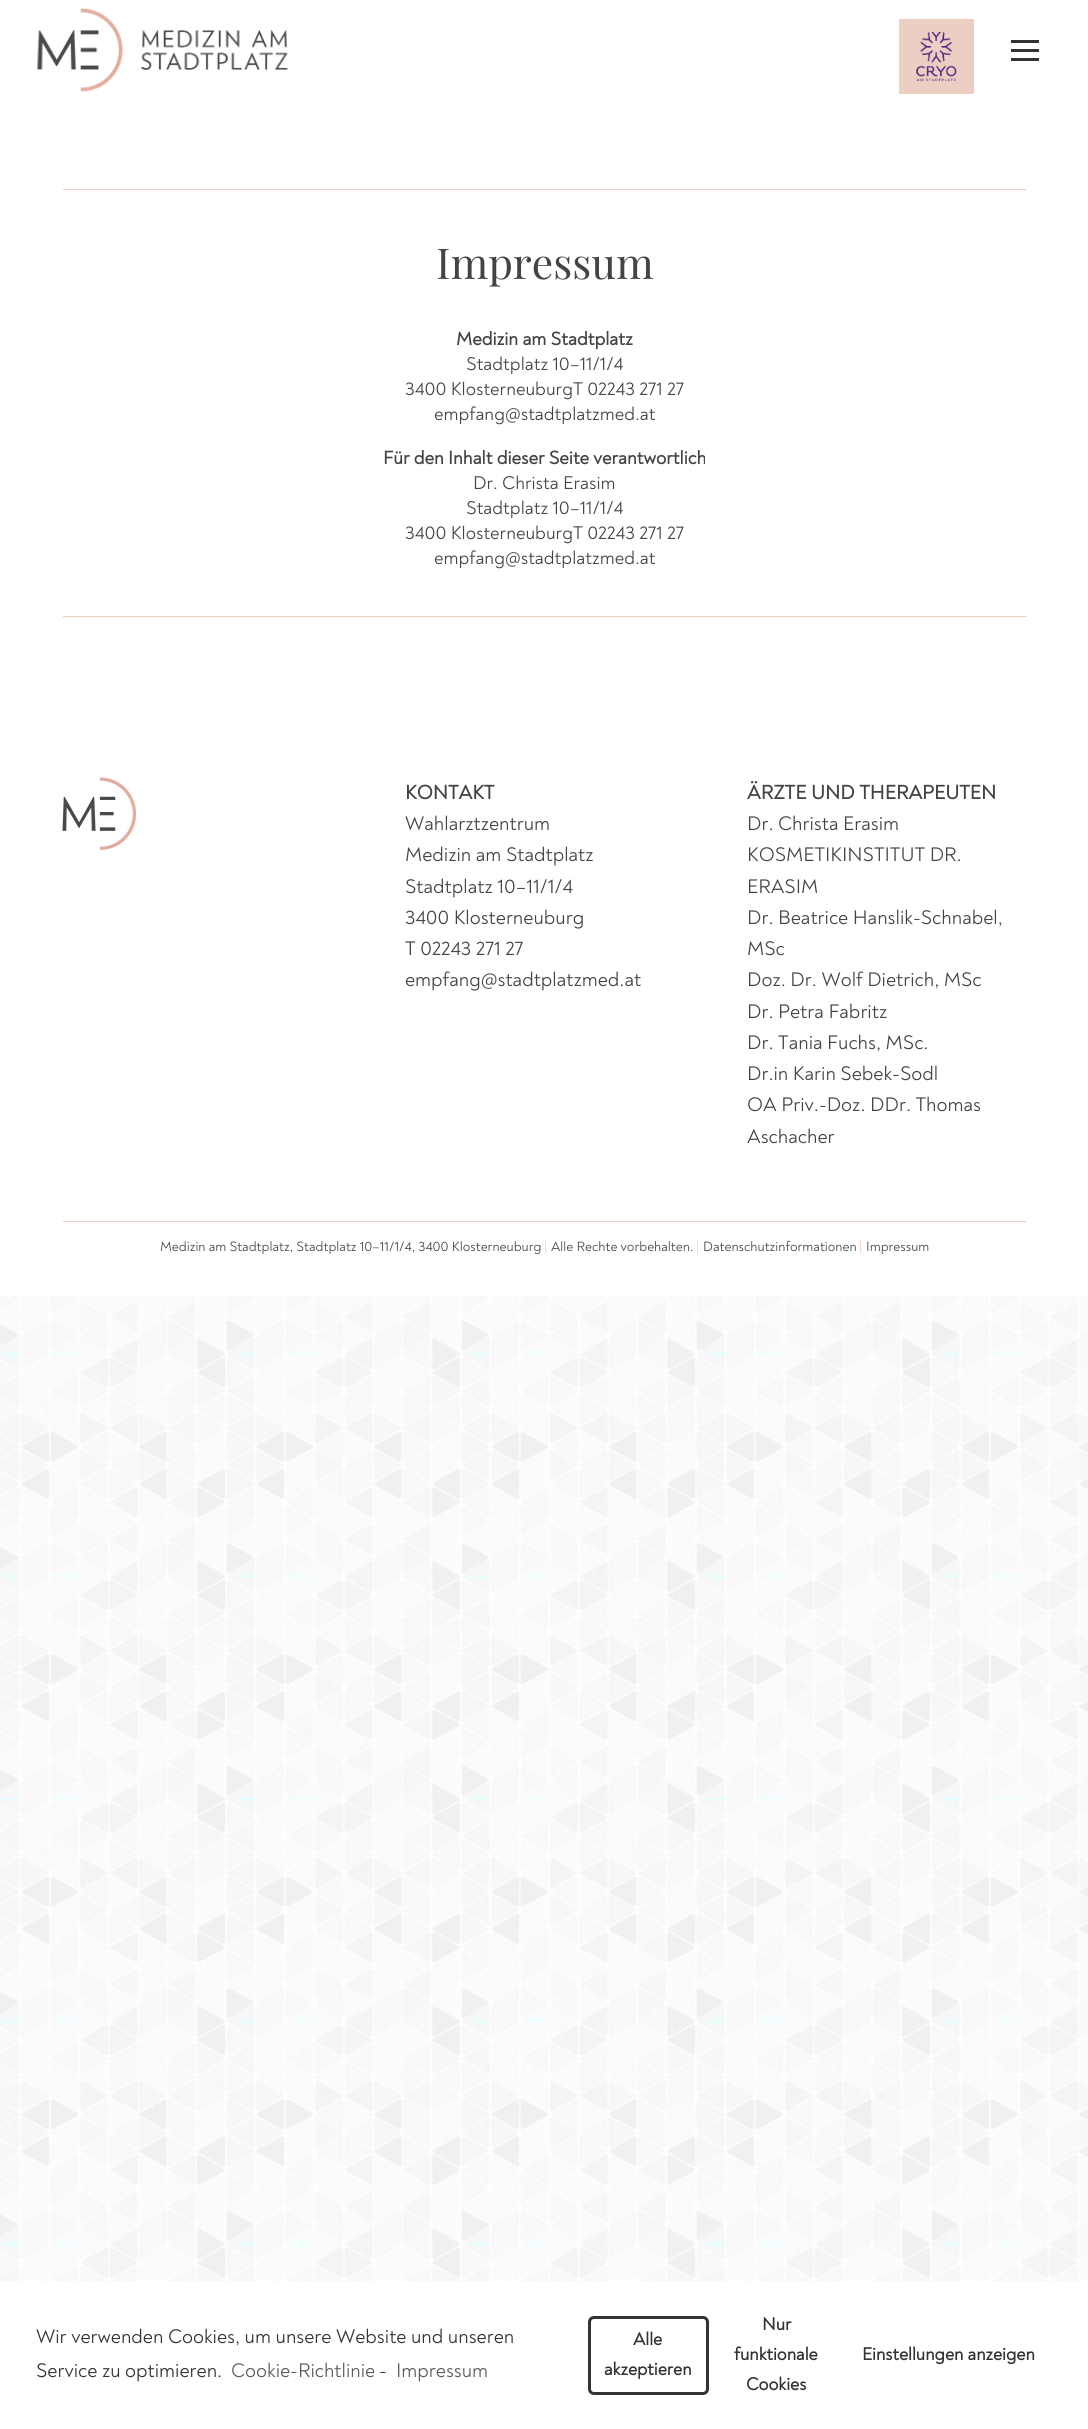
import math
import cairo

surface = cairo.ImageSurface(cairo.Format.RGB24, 1088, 2429)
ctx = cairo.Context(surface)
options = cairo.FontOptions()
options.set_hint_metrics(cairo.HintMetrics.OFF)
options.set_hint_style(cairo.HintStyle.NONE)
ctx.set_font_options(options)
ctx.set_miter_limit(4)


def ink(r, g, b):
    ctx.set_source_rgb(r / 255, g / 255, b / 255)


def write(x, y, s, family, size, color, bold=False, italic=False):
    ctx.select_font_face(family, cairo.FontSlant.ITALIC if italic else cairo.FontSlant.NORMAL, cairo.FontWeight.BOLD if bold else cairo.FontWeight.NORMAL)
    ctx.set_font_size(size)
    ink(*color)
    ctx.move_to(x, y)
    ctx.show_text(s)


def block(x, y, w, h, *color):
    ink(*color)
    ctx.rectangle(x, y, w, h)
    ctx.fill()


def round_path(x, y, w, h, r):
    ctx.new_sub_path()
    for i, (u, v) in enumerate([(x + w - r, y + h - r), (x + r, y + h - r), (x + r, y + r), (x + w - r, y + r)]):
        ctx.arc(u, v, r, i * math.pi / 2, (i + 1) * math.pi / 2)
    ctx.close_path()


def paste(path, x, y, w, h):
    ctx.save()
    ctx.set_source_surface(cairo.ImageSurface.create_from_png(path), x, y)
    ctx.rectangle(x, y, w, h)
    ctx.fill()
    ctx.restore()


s1 = dict(family="Playfair Display", size=42.5, color=(68, 68, 68))
s2 = dict(family="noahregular", size=18.75, color=(68, 68, 68), bold=True)
s3 = dict(family="noahregular", size=18.75, color=(68, 68, 68))
s4 = dict(family="noahregular", size=20, color=(68, 68, 68), bold=True)
s5 = dict(family="noahregular", size=20, color=(68, 68, 68))
s6 = dict(family="noahregular", size=13.75, color=(68, 68, 68))
s7 = dict(family="noahregular", size=13.75, color=(237, 206, 194))
s8 = dict(family="noahregular", size=20, color=(51, 51, 51))
s9 = dict(family="noahregular", size=20, color=(92, 92, 92))
s10 = dict(family="noahregular", size=18, color=(51, 51, 51), bold=True)

ink(255, 255, 255)
ctx.paint()
paste("pic1.png", 0, 1296, 1088, 985)
paste("pic2.png", 37, 8, 251, 84)
block(912, 32, 49, 49, 237, 206, 194)
paste("pic3.png", 916, 32, 41, 49)
ctx.rectangle(905.5, 25.5, 62, 62)
ctx.set_line_width(13)
ctx.stroke()
block(1011, 40, 28, 3, 51, 51, 51)
block(1011, 49, 28, 3, 51, 51, 51)
block(1011, 58, 28, 3, 51, 51, 51)
block(63, 189, 963, 1, 237, 206, 194)
write(436, 279, "Impressum", **s1)
write(456, 345, "Medizin am Stadtplatz", **s2)
write(466, 370, "Stadtplatz 10–11/1/4", **s3)
write(405, 395, "3400 KlosterneuburgT 02243 271 27", **s3)
write(434, 420, "empfang@stadtplatzmed.at", **s3)
write(383, 464, "Für den Inhalt dieser Seite verantwortlich", **s2)
write(473, 489, "Dr. Christa Erasim", **s3)
write(466, 514, "Stadtplatz 10–11/1/4", **s3)
write(405, 539, "3400 KlosterneuburgT 02243 271 27", **s3)
write(434, 564, "empfang@stadtplatzmed.at", **s3)
block(63, 616, 963, 1, 237, 206, 194)
paste("pic4.png", 62, 777, 75, 73)
write(405, 799, "KONTAKT", **s4)
write(405, 830, "Wahlarztzentrum", **s5)
write(405, 861, "Medizin am Stadtplatz", **s5)
write(405, 893, "Stadtplatz 10–11/1/4", **s5)
write(405, 924, "3400 Klosterneuburg", **s5)
write(405, 955, "T 02243 271 27", **s5)
write(405, 986, "empfang@stadtplatzmed.at", **s5)
write(747, 799, "ÄRZTE UND THERAPEUTEN", **s4)
write(747, 830, "Dr. Christa Erasim", **s5)
write(747, 861, "KOSMETIKINSTITUT DR.", **s5)
write(747, 893, "ERASIM", **s5)
write(747, 924, "Dr. Beatrice Hanslik-Schnabel,", **s5)
write(747, 955, "MSc", **s5)
write(747, 986, "Doz. Dr. Wolf Dietrich, MSc", **s5)
write(747, 1018, "Dr. Petra Fabritz", **s5)
write(747, 1049, "Dr. Tania Fuchs, MSc.", **s5)
write(747, 1080, "Dr.in Karin Sebek-Sodl", **s5)
write(747, 1111, "OA Priv.-Doz. DDr. Thomas", **s5)
write(747, 1143, "Aschacher", **s5)
block(63, 1221, 963, 1, 237, 206, 194)
write(160, 1251, "Medizin am Stadtplatz, Stadtplatz 10–11/1/4, 3400 Klosterneuburg", **s6)
write(544, 1251, "|", **s7)
write(551, 1251, "Alle Rechte vorbehalten.", **s6)
write(696, 1251, "|", **s7)
write(703, 1251, "Datenschutzinformationen", **s6)
write(859, 1251, "|", **s7)
write(866, 1251, "Impressum", **s6)
write(36, 2343, "Wir verwenden Cookies, um unsere Website und unseren", **s8)
write(36, 2377, "Service zu optimieren.", **s8)
write(231, 2377, "Cookie-Richtlinie", **s9)
write(379, 2377, "-", **s8)
write(396, 2377, "Impressum", **s9)
round_path(589.5, 2317.5, 118, 76, 4.5)
ink(51, 51, 51)
ctx.set_line_width(3)
ctx.stroke()
write(633, 2345, "Alle", **s10)
write(604, 2375, "akzeptieren", **s10)
write(762, 2330, "Nur", **s10)
write(734, 2360, "funktionale", **s10)
write(746, 2390, "Cookies", **s10)
write(862, 2360, "Einstellungen anzeigen", **s10)
surface.write_to_png("screenshot.png")
